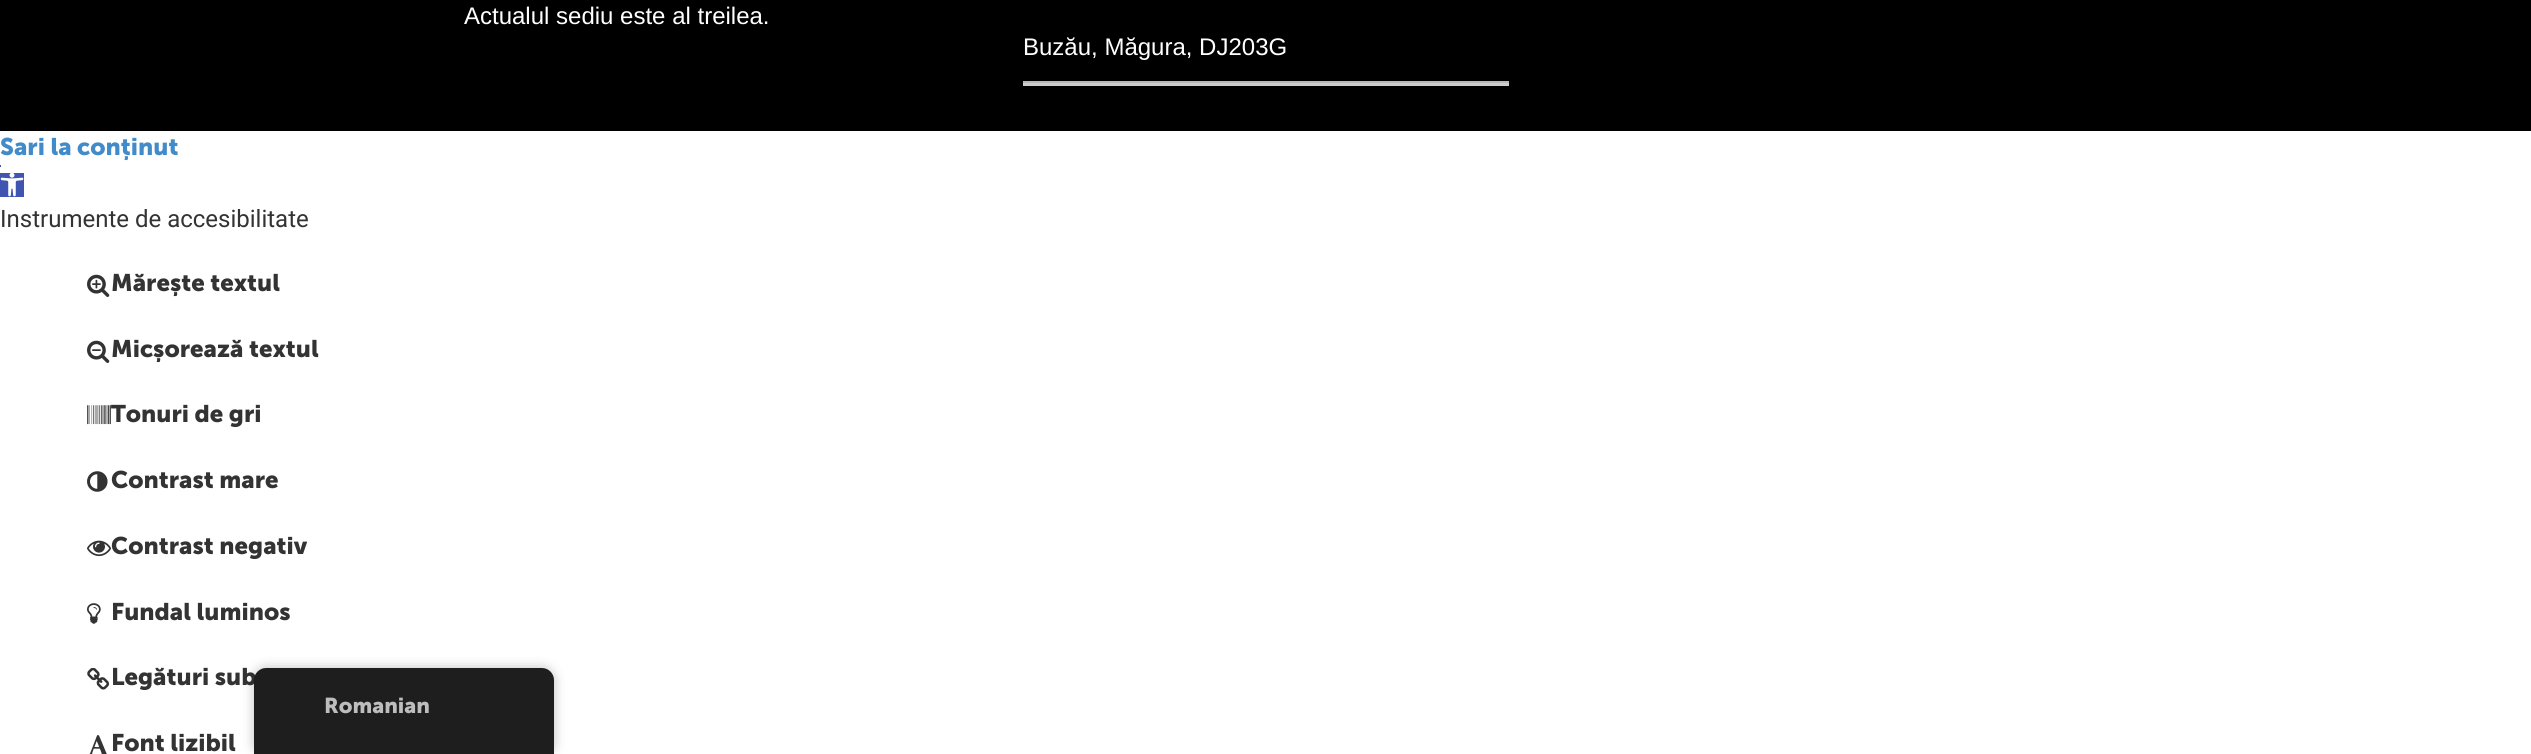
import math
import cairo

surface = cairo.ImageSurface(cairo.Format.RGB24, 2531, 754)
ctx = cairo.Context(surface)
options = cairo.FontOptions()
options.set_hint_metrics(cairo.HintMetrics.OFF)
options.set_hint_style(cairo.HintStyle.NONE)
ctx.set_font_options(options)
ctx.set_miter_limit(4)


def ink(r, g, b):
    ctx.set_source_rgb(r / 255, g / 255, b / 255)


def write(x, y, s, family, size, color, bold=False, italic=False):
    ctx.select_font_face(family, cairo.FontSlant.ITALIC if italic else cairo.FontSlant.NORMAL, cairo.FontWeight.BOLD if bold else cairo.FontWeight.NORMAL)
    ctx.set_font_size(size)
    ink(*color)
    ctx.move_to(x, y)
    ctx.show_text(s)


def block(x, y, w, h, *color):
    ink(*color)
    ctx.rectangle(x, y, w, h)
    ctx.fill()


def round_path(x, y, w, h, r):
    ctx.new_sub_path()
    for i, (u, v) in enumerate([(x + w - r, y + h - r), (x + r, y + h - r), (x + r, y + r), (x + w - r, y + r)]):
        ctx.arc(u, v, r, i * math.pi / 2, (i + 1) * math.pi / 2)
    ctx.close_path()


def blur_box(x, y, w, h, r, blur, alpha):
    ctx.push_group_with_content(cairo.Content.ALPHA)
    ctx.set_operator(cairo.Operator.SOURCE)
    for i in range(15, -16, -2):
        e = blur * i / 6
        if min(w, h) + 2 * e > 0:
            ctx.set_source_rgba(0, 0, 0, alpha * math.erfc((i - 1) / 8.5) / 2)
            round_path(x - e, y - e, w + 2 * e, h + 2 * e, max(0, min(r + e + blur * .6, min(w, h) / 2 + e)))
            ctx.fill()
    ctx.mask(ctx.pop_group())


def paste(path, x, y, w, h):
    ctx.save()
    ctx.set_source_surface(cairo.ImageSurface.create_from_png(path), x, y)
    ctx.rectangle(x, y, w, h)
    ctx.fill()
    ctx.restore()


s1 = dict(family="Liberation Sans", size=24, color=(255, 255, 255))
s2 = dict(family="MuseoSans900", size=24, color=(66, 139, 202))
s3 = dict(family="Roboto", size=24, color=(51, 51, 51))
s4 = dict(family="MuseoSans900", size=24, color=(51, 51, 51))
s5 = dict(family="MuseoSans900", size=21.5, color=(189, 189, 189))

ink(255, 255, 255)
ctx.paint()
block(0, 0, 2531, 131, 0, 0, 0)
write(464, 24, "Actualul sediu este al treilea.", **s1)
write(1023, 55, "Buzău, Măgura, DJ203G", **s1)
block(1023, 83, 486, 3, 204, 204, 204)
block(1023, 81, 486, 2, 184, 184, 184)
write(0, 155, "Sari la conținut", **s2)
block(0, 165, 1, 2, 64, 84, 178)
block(0, 173, 24, 24, 64, 84, 178)
paste("pic1.png", 0, 173, 24, 24)
write(0, 227, "Instrumente de accesibilitate", **s3)
paste("pic2.png", 87, 274, 23, 23)
write(111, 291, "Mărește textul", **s4)
paste("pic3.png", 87, 340, 23, 23)
write(111, 357, "Micșorează textul", **s4)
paste("pic4.png", 87, 405, 24, 20)
write(111, 422, "Tonuri de gri", **s4)
paste("pic5.png", 87, 471, 21, 21)
write(111, 488, "Contrast mare", **s4)
paste("pic6.png", 87, 540, 24, 17)
write(111, 554, "Contrast negativ", **s4)
paste("pic7.png", 87, 603, 14, 21)
write(111, 620, "Fundal luminos", **s4)
paste("pic8.png", 87, 668, 23, 22)
write(111, 685, "Legături sub", **s4)
paste("pic9.png", 89, 735, 18, 19)
write(111, 751, "Font lizibil", **s4)
ink(0, 0, 0)
blur_box(254, 668, 300, 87, 12, 6, 0.25)
ink(30, 30, 30)
ctx.new_path()
ctx.move_to(266, 668)
ctx.line_to(542, 668)
ctx.curve_to(548.5, 668, 554, 673.5, 554, 680)
ctx.line_to(554, 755)
ctx.line_to(254, 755)
ctx.line_to(254, 680)
ctx.curve_to(254, 673.5, 259.5, 668, 266, 668)
ctx.close_path()
ctx.fill()
write(324, 713, "Romanian", **s5)
surface.write_to_png("screenshot.png")
